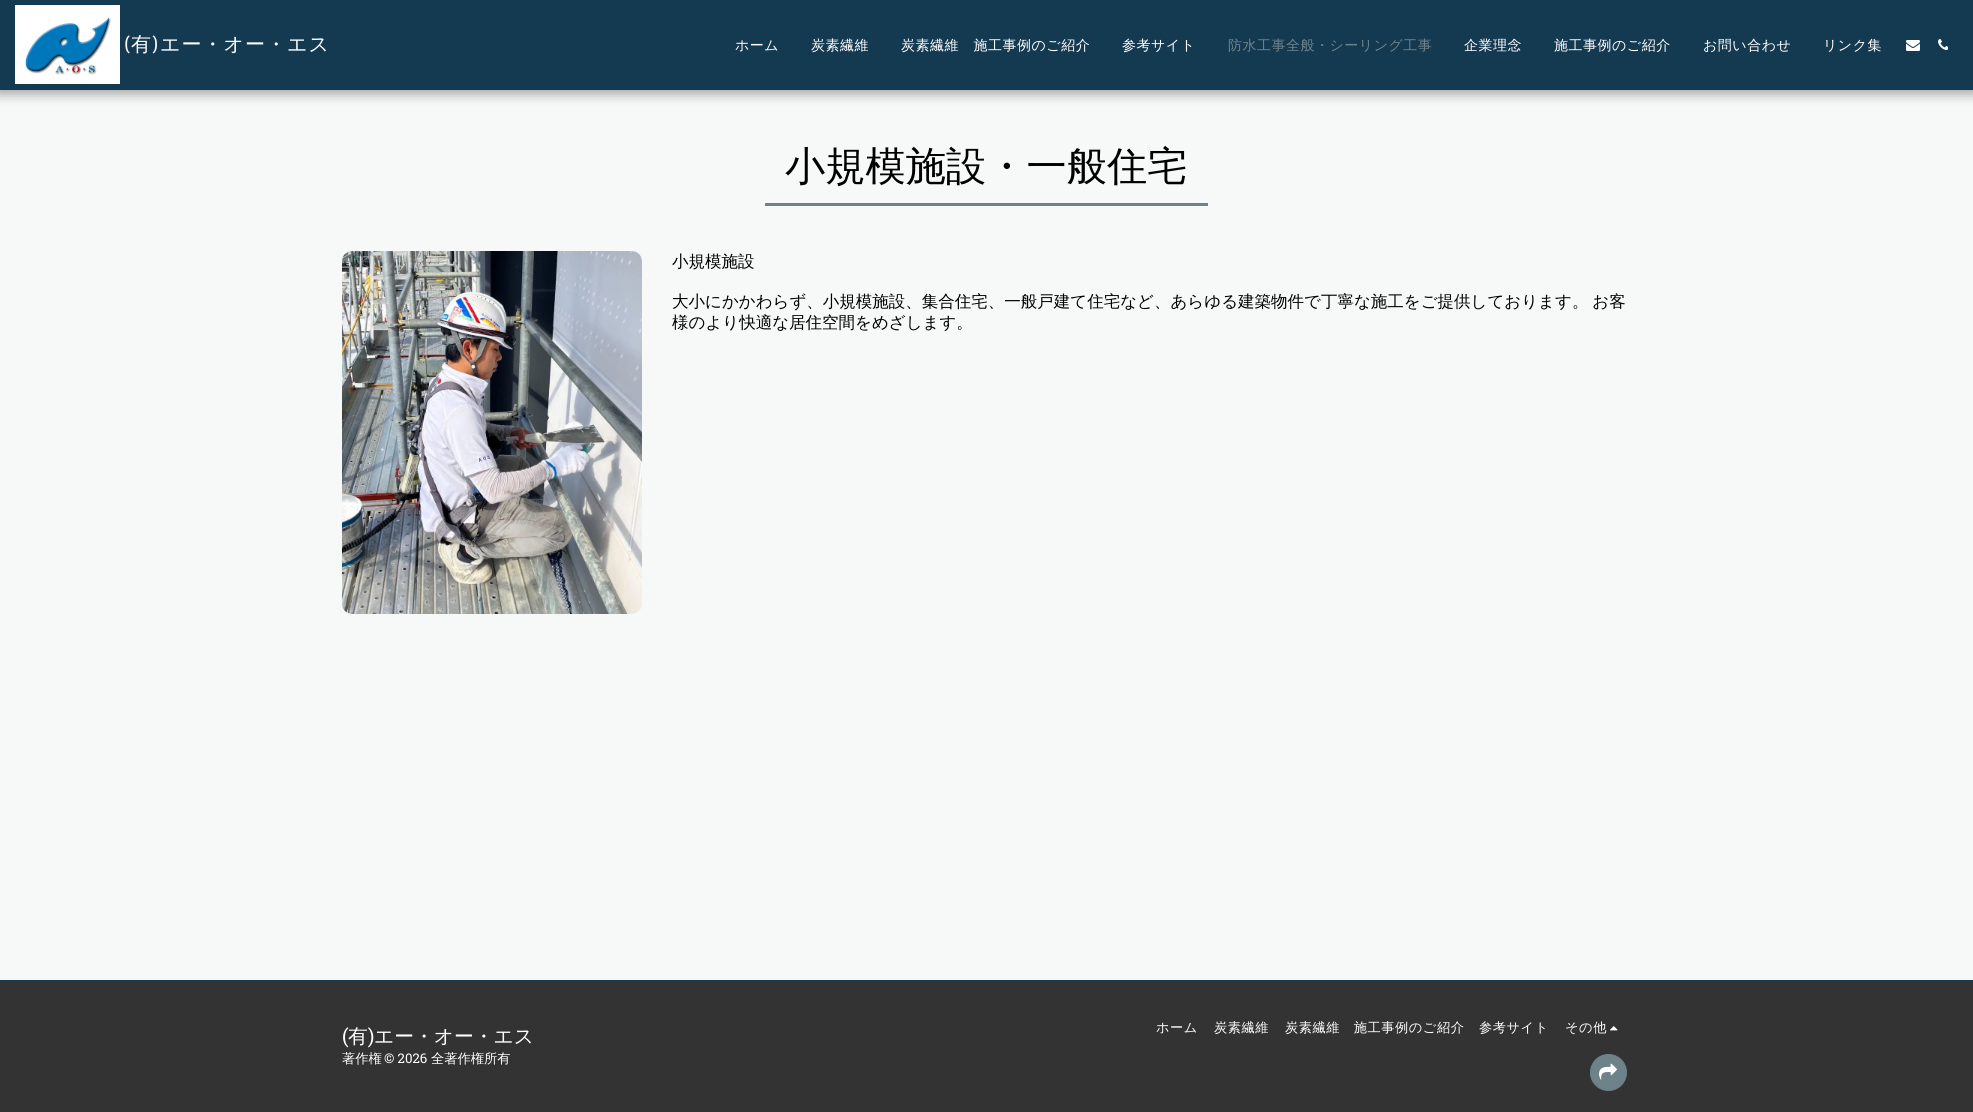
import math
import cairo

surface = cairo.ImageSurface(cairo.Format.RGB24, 1973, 1112)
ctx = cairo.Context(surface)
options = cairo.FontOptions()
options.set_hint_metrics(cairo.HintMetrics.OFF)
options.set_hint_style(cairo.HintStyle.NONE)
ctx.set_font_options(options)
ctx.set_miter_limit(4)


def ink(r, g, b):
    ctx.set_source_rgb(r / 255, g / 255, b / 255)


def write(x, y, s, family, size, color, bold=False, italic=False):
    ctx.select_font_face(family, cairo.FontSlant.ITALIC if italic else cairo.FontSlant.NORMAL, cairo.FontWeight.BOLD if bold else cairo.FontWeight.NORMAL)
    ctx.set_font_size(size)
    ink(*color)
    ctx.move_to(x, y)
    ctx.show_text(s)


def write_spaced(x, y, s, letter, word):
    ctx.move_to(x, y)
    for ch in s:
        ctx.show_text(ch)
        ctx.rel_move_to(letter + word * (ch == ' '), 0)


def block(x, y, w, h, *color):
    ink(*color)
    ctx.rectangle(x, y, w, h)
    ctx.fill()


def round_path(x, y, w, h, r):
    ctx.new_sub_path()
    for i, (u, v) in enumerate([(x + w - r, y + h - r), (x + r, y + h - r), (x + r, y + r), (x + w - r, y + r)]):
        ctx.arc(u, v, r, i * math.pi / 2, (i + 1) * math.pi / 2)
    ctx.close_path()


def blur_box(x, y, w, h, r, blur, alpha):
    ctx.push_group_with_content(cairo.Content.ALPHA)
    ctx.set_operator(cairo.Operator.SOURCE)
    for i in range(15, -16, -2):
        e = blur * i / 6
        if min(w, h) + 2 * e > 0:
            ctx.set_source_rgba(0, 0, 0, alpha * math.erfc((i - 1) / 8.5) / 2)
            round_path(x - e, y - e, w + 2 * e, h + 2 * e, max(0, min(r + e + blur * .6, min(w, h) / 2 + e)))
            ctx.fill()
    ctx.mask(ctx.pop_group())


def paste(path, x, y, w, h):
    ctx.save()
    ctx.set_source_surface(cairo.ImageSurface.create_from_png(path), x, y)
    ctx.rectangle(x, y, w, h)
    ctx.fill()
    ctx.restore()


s1 = dict(family="WenQuanYi Zen Hei Medium", size=40.25, color=(0, 0, 0))
s2 = dict(family="WenQuanYi Zen Hei Medium", size=16.5, color=(0, 0, 0))
s3 = dict(family="Roboto Slab", size=19.75, color=(255, 255, 255))
s4 = dict(family="WenQuanYi Zen Hei Medium", size=19.75, color=(255, 255, 255))
s5 = dict(family="WenQuanYi Zen Hei Medium", size=13.25, color=(255, 255, 255))
s6 = dict(family="Roboto Slab", size=13.25, color=(255, 255, 255))

ink(247, 249, 248)
ctx.paint()
ink(0, 0, 0)
blur_box(-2, 0, 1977, 94, 0, 6, 0.35)
block(0, 0, 1973, 90, 20, 58, 82)
paste("pic1.png", 15, 5, 105, 79)
ctx.select_font_face("Ruda")
ctx.set_font_size(20)
ink(255, 255, 255)
write_spaced(124, 51, "(", 1, 0)
ctx.select_font_face("WenQuanYi Zen Hei Medium")
write_spaced(131, 51, "有", 1, 0)
ctx.select_font_face("Ruda")
write_spaced(152, 51, ")", 1, 0)
ctx.select_font_face("WenQuanYi Zen Hei Medium")
write_spaced(160, 51, "エー・オー・エス", 1, 0)
ctx.set_font_size(14)
write_spaced(735, 50, "ホーム", 0.5, 0)
write_spaced(811, 50, "炭素繊維", 0.5, 0)
write_spaced(901, 50, "炭素繊維　施工事例のご紹介", 0.5, 0)
write_spaced(1122, 50, "参考サイト", 0.5, 0)
ink(110, 130, 138)
write_spaced(1228, 50, "防水工事全般・シーリング工事", 0.5, 0)
ink(255, 255, 255)
write_spaced(1464, 50, "企業理念", 0.5, 0)
write_spaced(1554, 50, "施工事例のご紹介", 0.5, 0)
write_spaced(1703, 50, "お問い合わせ", 0.5, 0)
write_spaced(1823, 50, "リンク集", 0.5, 0)
paste("pic2.png", 1906, 40, 14, 11)
paste("pic3.png", 1938, 39, 10, 11)
block(765, 203, 443, 3, 110, 130, 138)
write(785, 180, "小規模施設・一般住宅", **s1)
paste("pic4.png", 342, 251, 300, 363)
write(672, 267, "小規模施設", **s2)
write_spaced(672, 307, "大小にかかわらず、小規模施設、集合住宅、一般戸建て住宅など、あらゆる建築物件で丁寧な施工をご提供しております。 お客", 0, -1)
write(672, 328, "様のより快適な居住空間をめざします。", **s2)
block(0, 981, 1973, 131, 51, 51, 51)
block(0, 980, 1973, 1, 20, 58, 82)
write(342, 1043, "(", **s3)
write(348, 1043, "有", **s4)
write(368, 1043, ")", **s3)
write(374, 1043, "エー・オー・エス", **s4)
write(342, 1063, "著作権", **s5)
write(384, 1063, "© 2026", **s6)
write(431, 1063, "全著作権所有", **s5)
write_spaced(1156, 1032, "ホーム", 0.5, 0)
write_spaced(1214, 1032, "炭素繊維", 0.5, 0)
write_spaced(1285, 1032, "炭素繊維　施工事例のご紹介", 0.5, 0)
write_spaced(1479, 1032, "参考サイト", 0.5, 0)
write_spaced(1565, 1032, "その他", 0.5, 0)
paste("pic5.png", 1610, 1026, 8, 5)
ink(110, 130, 138)
ctx.arc(1608.5, 1072.5, 18, 0, 2 * math.pi)
ctx.fill_preserve()
ctx.set_line_width(1)
ctx.stroke()
paste("pic6.png", 1599, 1063, 18, 17)
surface.write_to_png("screenshot.png")
